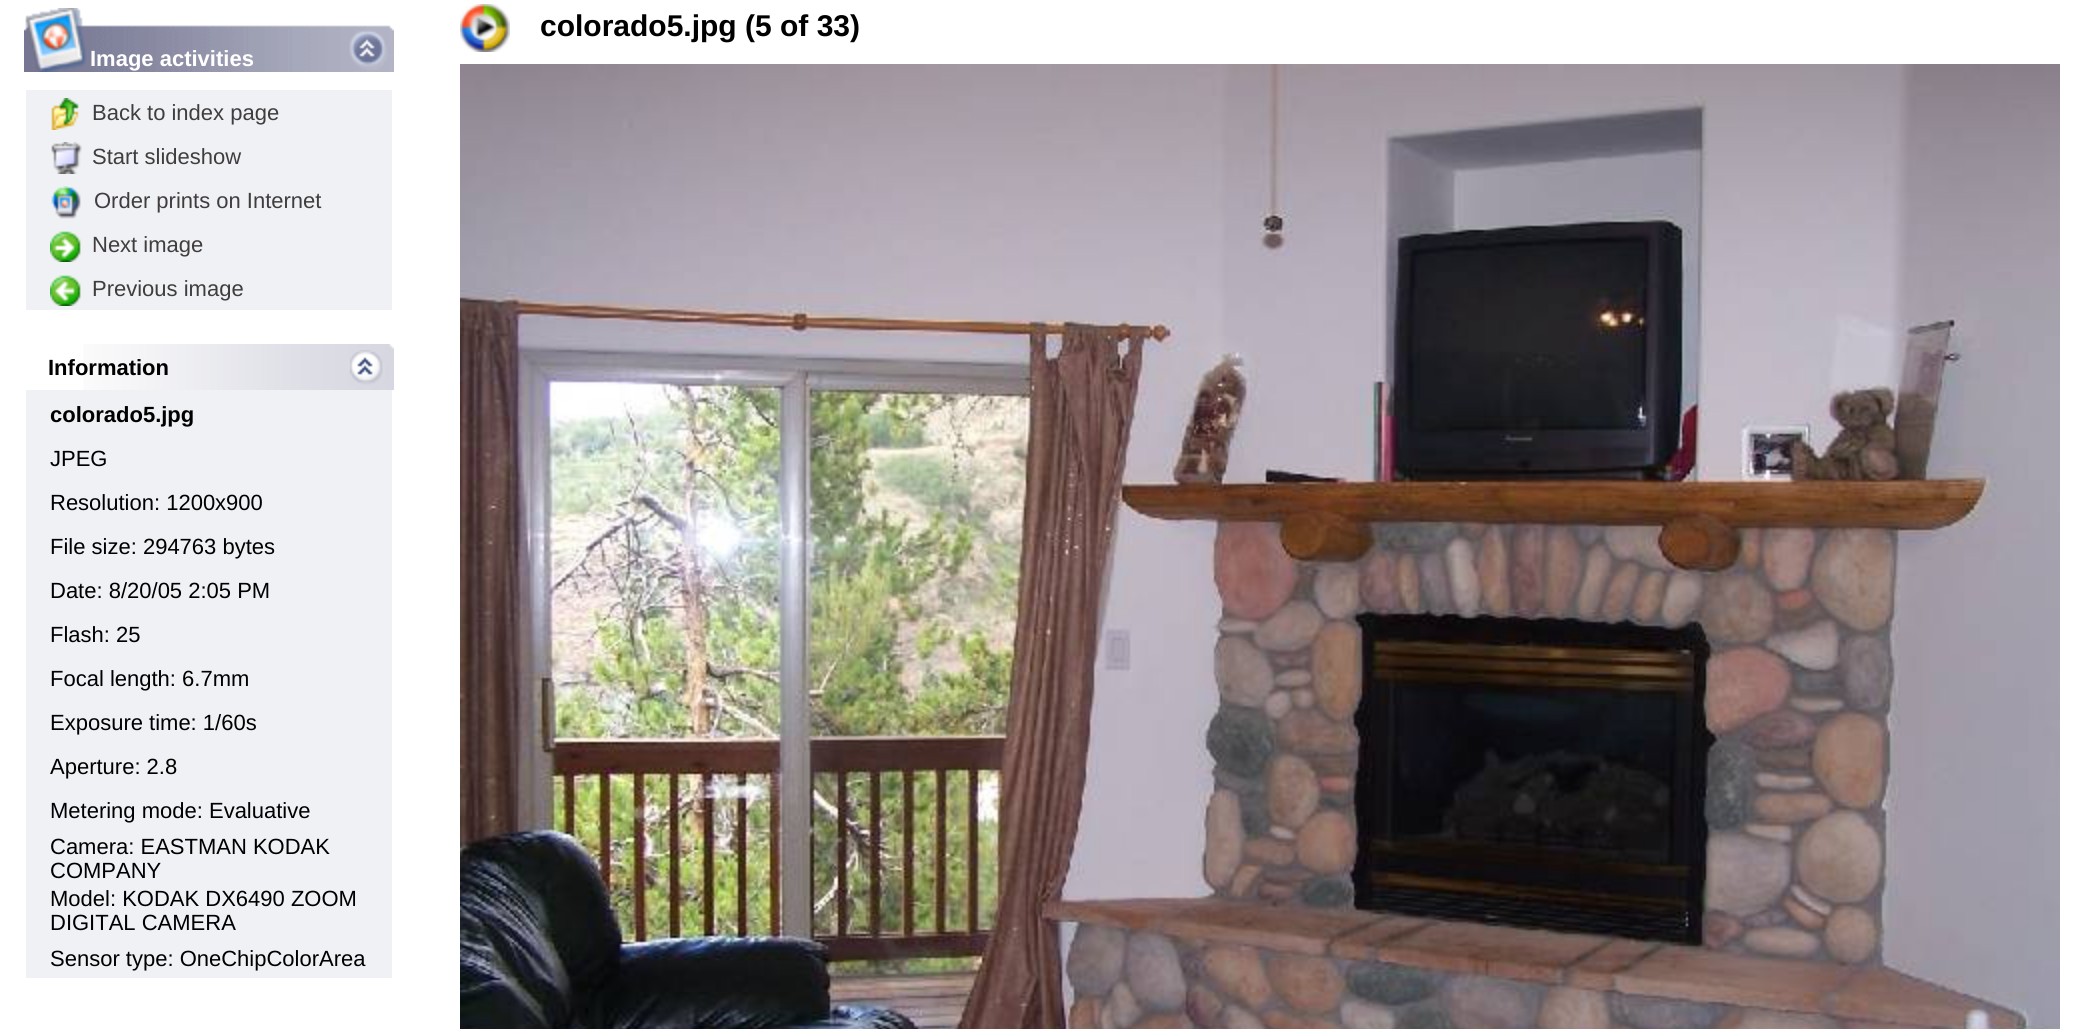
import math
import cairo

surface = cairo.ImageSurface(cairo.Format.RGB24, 2076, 1029)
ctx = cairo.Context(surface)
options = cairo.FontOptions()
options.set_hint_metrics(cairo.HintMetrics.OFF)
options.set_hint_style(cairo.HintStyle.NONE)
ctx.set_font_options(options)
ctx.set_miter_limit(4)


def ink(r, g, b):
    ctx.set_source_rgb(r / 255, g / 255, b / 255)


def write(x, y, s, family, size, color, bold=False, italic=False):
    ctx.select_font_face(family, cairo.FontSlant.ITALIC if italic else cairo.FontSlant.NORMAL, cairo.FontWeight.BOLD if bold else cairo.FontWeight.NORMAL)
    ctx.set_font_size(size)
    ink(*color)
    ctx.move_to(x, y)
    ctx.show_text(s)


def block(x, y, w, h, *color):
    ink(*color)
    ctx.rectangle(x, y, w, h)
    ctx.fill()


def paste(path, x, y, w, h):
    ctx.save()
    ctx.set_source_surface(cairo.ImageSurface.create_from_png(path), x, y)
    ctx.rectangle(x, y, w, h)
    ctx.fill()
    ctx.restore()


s1 = dict(family="Liberation Sans", size=30, color=(0, 0, 0), bold=True)
s2 = dict(family="Liberation Sans", size=22, color=(255, 255, 255), bold=True)
s3 = dict(family="Liberation Sans", size=22, color=(63, 61, 61))
s4 = dict(family="Liberation Sans", size=22, color=(0, 0, 0), bold=True)
s5 = dict(family="Liberation Sans", size=22, color=(0, 0, 0))

ink(255, 255, 255)
ctx.paint()
paste("pic1.png", 460, 4, 50, 48)
write(540, 36, "colorado5.jpg (5 of 33)", **s1)
paste("pic2.png", 24, 8, 370, 64)
write(90, 66, "Image activities", **s2)
block(26, 90, 366, 220, 240, 241, 245)
paste("pic3.png", 51, 98, 28, 32)
write(92, 120, "Back to index page", **s3)
paste("pic4.png", 51, 142, 31, 32)
write(92, 164, "Start slideshow", **s3)
paste("pic5.png", 51, 186, 30, 33)
write(94, 208, "Order prints on Internet", **s3)
paste("pic6.png", 50, 231, 31, 31)
write(92, 252, "Next image", **s3)
paste("pic7.png", 50, 275, 31, 31)
write(92, 296, "Previous image", **s3)
paste("pic8.png", 83, 344, 311, 46)
write(48, 375, "Information", **s4)
block(26, 390, 366, 588, 240, 241, 245)
write(50, 422, "colorado5.jpg", **s4)
write(50, 466, "JPEG", **s5)
write(50, 510, "Resolution: 1200x900", **s5)
write(50, 554, "File size: 294763 bytes", **s5)
write(50, 598, "Date: 8/20/05 2:05 PM", **s5)
write(50, 642, "Flash: 25", **s5)
write(50, 686, "Focal length: 6.7mm", **s5)
write(50, 730, "Exposure time: 1/60s", **s5)
write(50, 774, "Aperture: 2.8", **s5)
write(50, 818, "Metering mode: Evaluative", **s5)
write(50, 854, "Camera: EASTMAN KODAK", **s5)
write(50, 878, "COMPANY", **s5)
write(50, 906, "Model: KODAK DX6490 ZOOM", **s5)
write(50, 930, "DIGITAL CAMERA", **s5)
write(50, 966, "Sensor type: OneChipColorArea", **s5)
paste("pic9.png", 460, 64, 1600, 965)
surface.write_to_png("screenshot.png")
